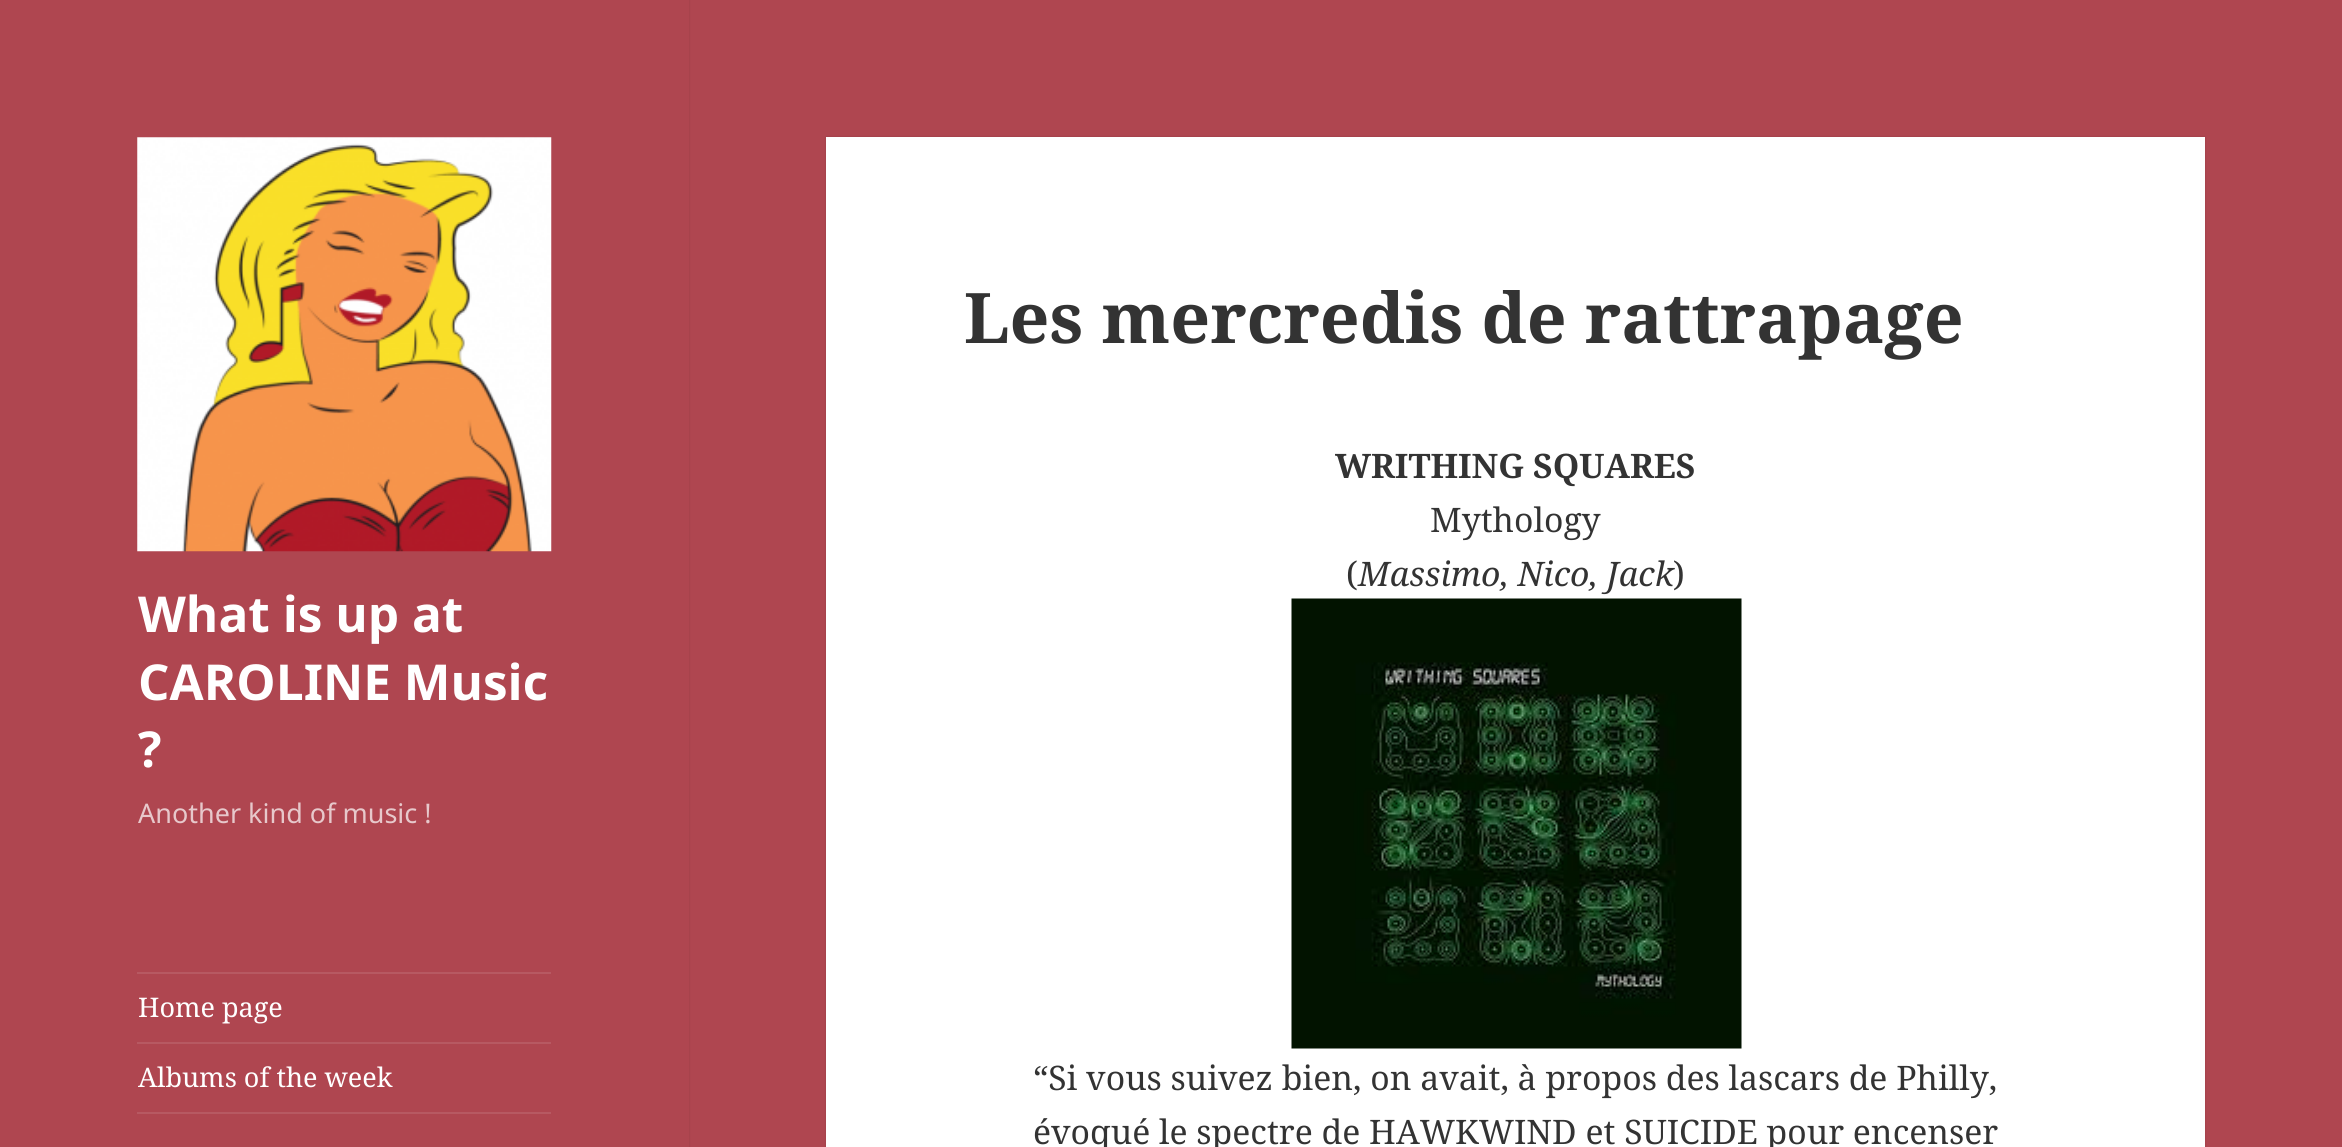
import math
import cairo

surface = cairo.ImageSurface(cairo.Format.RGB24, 2342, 1147)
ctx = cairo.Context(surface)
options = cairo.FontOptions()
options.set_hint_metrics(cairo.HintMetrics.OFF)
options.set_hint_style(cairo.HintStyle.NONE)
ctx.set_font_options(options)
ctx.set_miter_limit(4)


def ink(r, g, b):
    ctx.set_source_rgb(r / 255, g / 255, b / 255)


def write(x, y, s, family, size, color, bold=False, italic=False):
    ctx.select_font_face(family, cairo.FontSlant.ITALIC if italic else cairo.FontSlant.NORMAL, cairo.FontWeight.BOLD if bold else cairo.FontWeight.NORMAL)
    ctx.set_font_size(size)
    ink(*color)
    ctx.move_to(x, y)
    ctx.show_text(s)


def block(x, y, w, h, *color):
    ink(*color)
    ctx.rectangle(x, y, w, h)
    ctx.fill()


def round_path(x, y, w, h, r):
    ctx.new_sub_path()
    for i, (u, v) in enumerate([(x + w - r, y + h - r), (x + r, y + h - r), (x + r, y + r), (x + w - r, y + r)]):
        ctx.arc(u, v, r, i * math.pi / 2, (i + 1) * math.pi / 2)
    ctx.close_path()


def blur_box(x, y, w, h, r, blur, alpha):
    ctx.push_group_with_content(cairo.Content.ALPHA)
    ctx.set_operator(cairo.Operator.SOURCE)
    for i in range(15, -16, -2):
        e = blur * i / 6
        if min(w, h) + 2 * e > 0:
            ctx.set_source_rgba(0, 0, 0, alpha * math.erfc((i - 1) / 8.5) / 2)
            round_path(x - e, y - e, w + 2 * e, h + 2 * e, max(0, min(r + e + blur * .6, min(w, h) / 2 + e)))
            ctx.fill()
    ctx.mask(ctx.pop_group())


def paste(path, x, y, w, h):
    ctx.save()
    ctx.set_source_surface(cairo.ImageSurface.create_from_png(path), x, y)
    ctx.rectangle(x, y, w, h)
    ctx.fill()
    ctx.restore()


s1 = dict(family="Noto Sans", size=49.5, color=(255, 255, 255), bold=True)
s2 = dict(family="Noto Sans", size=27, color=(231, 200, 203))
s3 = dict(family="Noto Serif", size=27, color=(255, 255, 255))
s4 = dict(family="Noto Serif", size=69.75, color=(51, 51, 51), bold=True)
s5 = dict(family="Noto Serif", size=33.75, color=(51, 51, 51), bold=True)
s6 = dict(family="Noto Serif", size=33.75, color=(51, 51, 51))
s7 = dict(family="Noto Serif", size=33.75, color=(51, 51, 51), italic=True)

ink(175, 70, 80)
ctx.paint()
ink(0, 0, 0)
blur_box(0, 0, 689, 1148, 0, 1, 0.15)
block(0, 0, 689, 1147, 175, 70, 80)
paste("pic1.png", 137, 137, 415, 415)
write(138, 632, "What is up at", **s1)
write(138, 700, "CAROLINE Music", **s1)
write(138, 767, "?", **s1)
write(138, 823, "Another kind of music !", **s2)
block(137, 972, 414, 2, 183, 89, 98)
write(138, 1017, "Home page", **s3)
block(137, 1042, 414, 2, 183, 89, 98)
write(138, 1087, "Albums of the week", **s3)
block(137, 1112, 414, 2, 183, 89, 98)
ink(0, 0, 0)
blur_box(826, 137, 1379, 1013, 0, 1, 0.15)
block(826, 137, 1379, 1010, 255, 255, 255)
write(964, 343, "Les mercredis de rattrapage", **s4)
write(1335, 478, "WRITHING SQUARES", **s5)
write(1430, 532, "Mythology", **s6)
write(1346, 586, "(", **s6)
write(1358, 586, "Massimo, Nico, Jack", **s7)
write(1673, 586, ")", **s6)
paste("pic2.png", 1291, 598, 451, 451)
write(1033, 1090, "“Si vous suivez bien, on avait, à propos des lascars de Philly,", **s6)
write(1033, 1144, "évoqué le spectre de HAWKWIND et SUICIDE pour encenser", **s6)
surface.write_to_png("screenshot.png")
